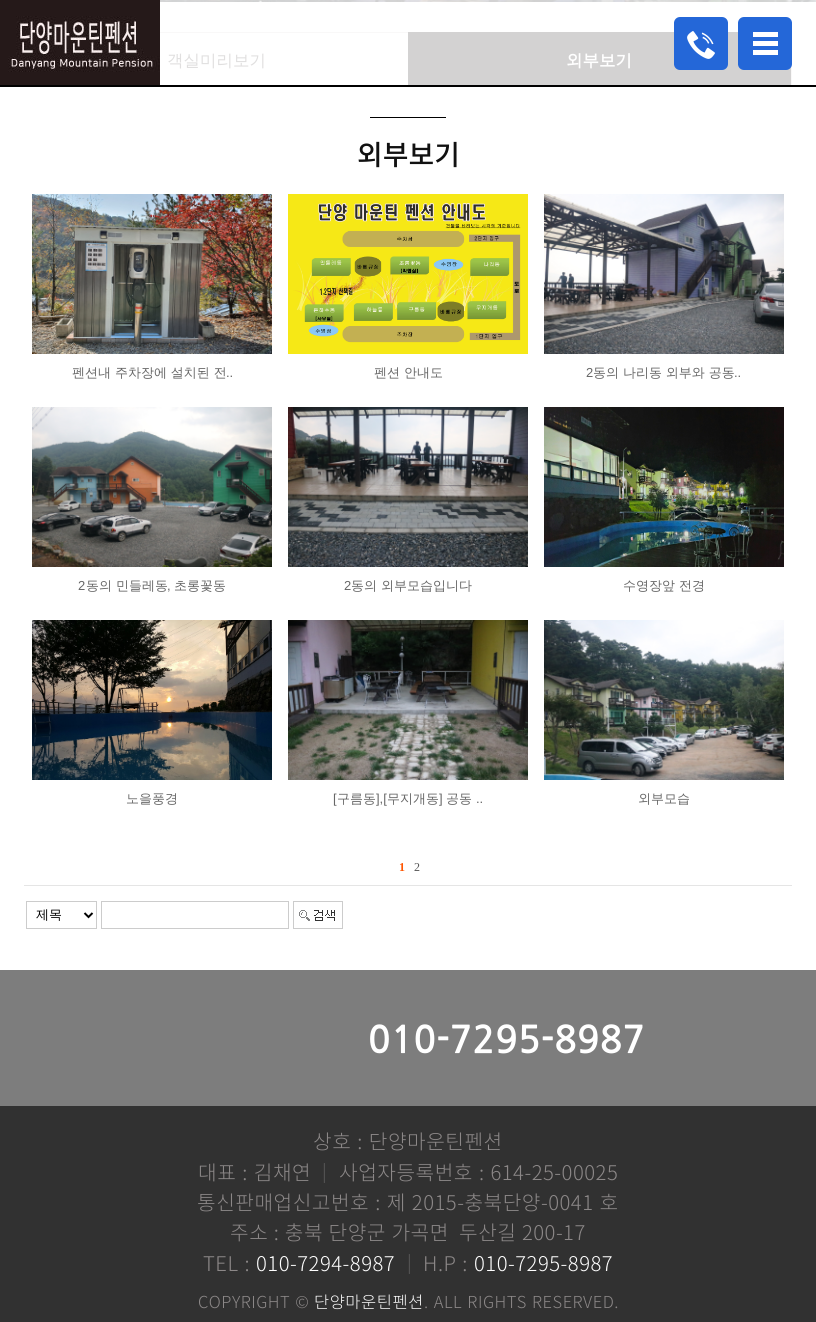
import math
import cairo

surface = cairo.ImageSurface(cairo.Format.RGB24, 816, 1322)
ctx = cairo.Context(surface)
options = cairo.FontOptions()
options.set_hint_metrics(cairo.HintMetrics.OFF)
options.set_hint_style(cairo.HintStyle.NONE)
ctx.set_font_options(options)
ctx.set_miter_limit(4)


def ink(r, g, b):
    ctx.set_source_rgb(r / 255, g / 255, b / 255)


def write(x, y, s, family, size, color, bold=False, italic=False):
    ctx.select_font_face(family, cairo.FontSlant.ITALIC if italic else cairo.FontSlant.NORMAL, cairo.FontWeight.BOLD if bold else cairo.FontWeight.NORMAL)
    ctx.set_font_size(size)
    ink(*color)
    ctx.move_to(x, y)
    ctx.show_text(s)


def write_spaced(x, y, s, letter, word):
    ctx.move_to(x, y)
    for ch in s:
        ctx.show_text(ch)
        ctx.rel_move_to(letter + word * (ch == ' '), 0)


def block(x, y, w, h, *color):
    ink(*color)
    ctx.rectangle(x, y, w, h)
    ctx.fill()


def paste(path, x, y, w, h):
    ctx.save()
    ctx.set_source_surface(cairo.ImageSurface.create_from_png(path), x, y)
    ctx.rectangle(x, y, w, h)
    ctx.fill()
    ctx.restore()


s1 = dict(family="WenQuanYi Zen Hei Medium", size=16.5, color=(224, 223, 223))
s2 = dict(family="WenQuanYi Zen Hei", size=16.5, color=(255, 255, 255), bold=True)
s3 = dict(family="Noto Sans KR Medium", size=28, color=(17, 17, 17))
s4 = dict(family="WenQuanYi Zen Hei Medium", size=13, color=(102, 102, 102))
s5 = dict(family="Liberation Sans", size=13, color=(102, 102, 102))
s6 = dict(family="Liberation Serif", size=12, color=(255, 85, 0), bold=True)
s7 = dict(family="Liberation Serif", size=12, color=(85, 85, 85))
s8 = dict(family="WenQuanYi Zen Hei Medium", size=13, color=(0, 0, 0))
s9 = dict(family="NanumGothic", size=37.5, color=(255, 255, 255), bold=True)

ink(255, 255, 255)
ctx.paint()
block(791, 64, 1, 23, 249, 248, 248)
block(0, 85, 816, 2, 0, 0, 0)
paste("pic1.png", 0, 0, 160, 85)
block(408, 32, 383, 53, 211, 210, 210)
paste("pic2.png", 674, 17, 54, 53)
paste("pic3.png", 738, 17, 54, 53)
paste("pic4.png", 160, 0, 656, 2)
block(160, 32, 248, 1, 249, 248, 248)
write(167, 66, "객실미리보기", **s1)
write(566, 66, "외부보기", **s2)
block(370, 117, 76, 1, 0, 0, 0)
write(357, 165, "외부보기", **s3)
paste("pic5.png", 32, 194, 240, 160)
write(72, 377, "펜션내 주차장에 설치된 전", **s4)
write(226, 377, "..", **s5)
paste("pic6.png", 288, 194, 240, 160)
write(374, 377, "펜션 안내도", **s4)
paste("pic7.png", 544, 194, 240, 160)
write(586, 377, "2", **s5)
write(593, 377, "동의 나리동 외부와 공동", **s4)
write(734, 377, "..", **s5)
paste("pic8.png", 32, 407, 240, 160)
write(78, 590, "2", **s5)
write(86, 590, "동의 민들레동", **s4)
write(167, 590, ",", **s5)
write(174, 590, "초롱꽃동", **s4)
paste("pic9.png", 288, 407, 240, 160)
write(344, 590, "2", **s5)
write(351, 590, "동의 외부모습입니다", **s4)
paste("pic10.png", 544, 407, 240, 160)
write(623, 590, "수영장앞 전경", **s4)
paste("pic11.png", 32, 620, 240, 160)
write(126, 803, "노을풍경", **s4)
paste("pic12.png", 288, 620, 240, 160)
write(333, 803, "[", **s5)
write(337, 803, "구름동", **s4)
write(376, 803, "],[", **s5)
write(387, 803, "무지개동", **s4)
write(439, 803, "]", **s5)
write(446, 803, "공동", **s4)
write(476, 803, "..", **s5)
paste("pic13.png", 544, 620, 240, 160)
write(638, 803, "외부모습", **s4)
write(399, 871, "1", **s6)
write(414, 871, "2", **s7)
block(24, 885, 768, 1, 229, 229, 229)
ctx.rectangle(26.5, 901.5, 70, 27)
ink(204, 204, 204)
ctx.set_line_width(1)
ctx.stroke()
ctx.new_path()
ctx.move_to(84.5, 913)
ctx.line_to(88.5, 917)
ctx.line_to(92.5, 913)
ink(0, 0, 0)
ctx.set_line_width(2)
ctx.stroke()
write(36, 919, "제목", **s8)
ctx.rectangle(101.5, 901.5, 187, 27)
ink(204, 204, 204)
ctx.set_line_width(1)
ctx.stroke()
paste("pic14.png", 293, 901, 50, 28)
block(0, 970, 816, 136, 125, 125, 125)
write(368, 1053, "010-7295-8987", **s9)
block(0, 1106, 816, 216, 49, 49, 49)
ctx.select_font_face("Noto Sans KR Light")
ctx.set_font_size(20.25)
ink(140, 136, 136)
write_spaced(313, 1149, "상호 : 단양마운틴펜션", 0.5, 1)
write_spaced(198, 1180, "대표 : 김채연", 0.5, 1)
ctx.set_font_size(18)
ink(96, 95, 95)
write_spaced(322, 1178, "|", 0.5, 0)
ctx.set_font_size(20.25)
ink(140, 136, 136)
write_spaced(339, 1180, "사업자등록번호 : 614-25-00025", 0.5, 1)
write_spaced(197, 1210, "통신판매업신고번호 : 제 2015-충북단양-0041 호", 0.5, 1)
write_spaced(230, 1240, "주소 : 충북 단양군 가곡면", 0.5, 0.5)
write_spaced(459, 1240, "두산길 200-17", 0.5, 0.5)
write_spaced(203, 1271, "TEL :", 0.5, 1)
ink(255, 255, 255)
write_spaced(256, 1271, "010-7294-8987", 0.5, 0)
ctx.set_font_size(18)
ink(96, 95, 95)
write_spaced(407, 1269, "|", 0.5, 0)
ctx.set_font_size(20.25)
ink(140, 136, 136)
write_spaced(423, 1271, "H.P :", 0.5, 1)
ink(255, 255, 255)
write_spaced(474, 1271, "010-7295-8987", 0.5, 0)
ctx.set_font_size(16.5)
ink(140, 136, 136)
write_spaced(198, 1308, "COPYRIGHT ©", 0.5, 1)
ink(255, 255, 255)
write_spaced(314, 1308, "단양마운틴펜션", 0.5, 0)
ink(140, 136, 136)
write_spaced(424, 1308, ". ALL RIGHTS RESERVED.", 0.5, 1)
surface.write_to_png("screenshot.png")
